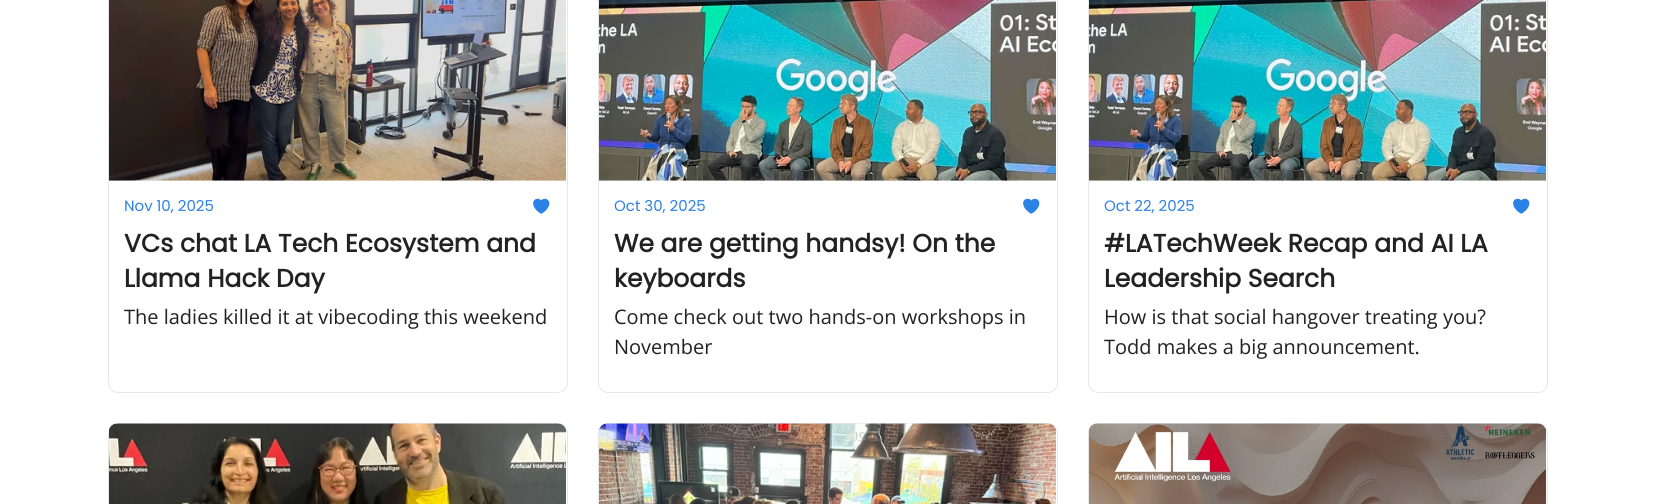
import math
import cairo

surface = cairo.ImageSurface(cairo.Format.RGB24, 1655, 504)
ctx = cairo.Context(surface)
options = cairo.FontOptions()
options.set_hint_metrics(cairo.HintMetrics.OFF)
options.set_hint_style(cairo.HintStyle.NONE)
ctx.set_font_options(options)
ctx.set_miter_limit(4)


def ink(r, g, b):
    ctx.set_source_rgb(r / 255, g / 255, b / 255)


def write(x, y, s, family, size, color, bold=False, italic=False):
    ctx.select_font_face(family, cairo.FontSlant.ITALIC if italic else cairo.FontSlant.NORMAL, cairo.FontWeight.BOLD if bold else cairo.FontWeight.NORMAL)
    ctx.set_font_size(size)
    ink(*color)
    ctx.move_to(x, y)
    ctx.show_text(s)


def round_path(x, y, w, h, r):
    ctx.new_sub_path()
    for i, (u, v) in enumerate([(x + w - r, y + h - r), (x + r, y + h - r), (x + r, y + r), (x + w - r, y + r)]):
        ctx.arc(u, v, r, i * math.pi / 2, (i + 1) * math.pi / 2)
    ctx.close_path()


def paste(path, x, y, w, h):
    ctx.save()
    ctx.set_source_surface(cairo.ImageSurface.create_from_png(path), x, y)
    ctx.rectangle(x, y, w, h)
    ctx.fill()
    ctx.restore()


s1 = dict(family="Poppins", size=15, color=(44, 129, 229))
s2 = dict(family="Poppins", size=25, color=(34, 34, 34), bold=True)
s3 = dict(family="Open Sans", size=20, color=(34, 34, 34))

ink(255, 255, 255)
ctx.paint()
round_path(108.5, -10.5, 459, 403, 9.5)
ink(229, 231, 235)
ctx.set_line_width(1)
ctx.stroke()
paste("pic1.png", 109, 0, 457, 181)
write(124, 211, "Nov 10, 2025", **s1)
paste("pic2.png", 533, 198, 17, 16)
write(124, 252, "VCs chat LA Tech Ecosystem and", **s2)
write(124, 287, "Llama Hack Day", **s2)
write(124, 324, "The ladies killed it at vibecoding this weekend", **s3)
round_path(598.5, -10.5, 459, 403, 9.5)
ink(229, 231, 235)
ctx.stroke()
paste("pic3.png", 599, 0, 457, 181)
write(614, 211, "Oct 30, 2025", **s1)
paste("pic2.png", 1023, 198, 17, 16)
write(614, 252, "We are getting handsy! On the", **s2)
write(614, 287, "keyboards", **s2)
write(614, 324, "Come check out two hands-on workshops in", **s3)
write(614, 354, "November", **s3)
round_path(1088.5, -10.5, 459, 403, 9.5)
ink(229, 231, 235)
ctx.stroke()
paste("pic3.png", 1089, 0, 457, 181)
write(1104, 211, "Oct 22, 2025", **s1)
paste("pic2.png", 1513, 198, 17, 16)
write(1104, 252, "#LATechWeek Recap and AI LA", **s2)
write(1104, 287, "Leadership Search", **s2)
write(1104, 324, "How is that social hangover treating you?", **s3)
write(1104, 354, "Todd makes a big announcement.", **s3)
round_path(108.5, 423.5, 459, 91, 9.5)
ink(229, 231, 235)
ctx.stroke()
paste("pic4.png", 109, 423, 457, 81)
round_path(598.5, 423.5, 459, 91, 9.5)
ctx.stroke()
paste("pic5.png", 599, 423, 457, 81)
round_path(1088.5, 423.5, 459, 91, 9.5)
ctx.stroke()
paste("pic6.png", 1089, 423, 457, 81)
surface.write_to_png("screenshot.png")
